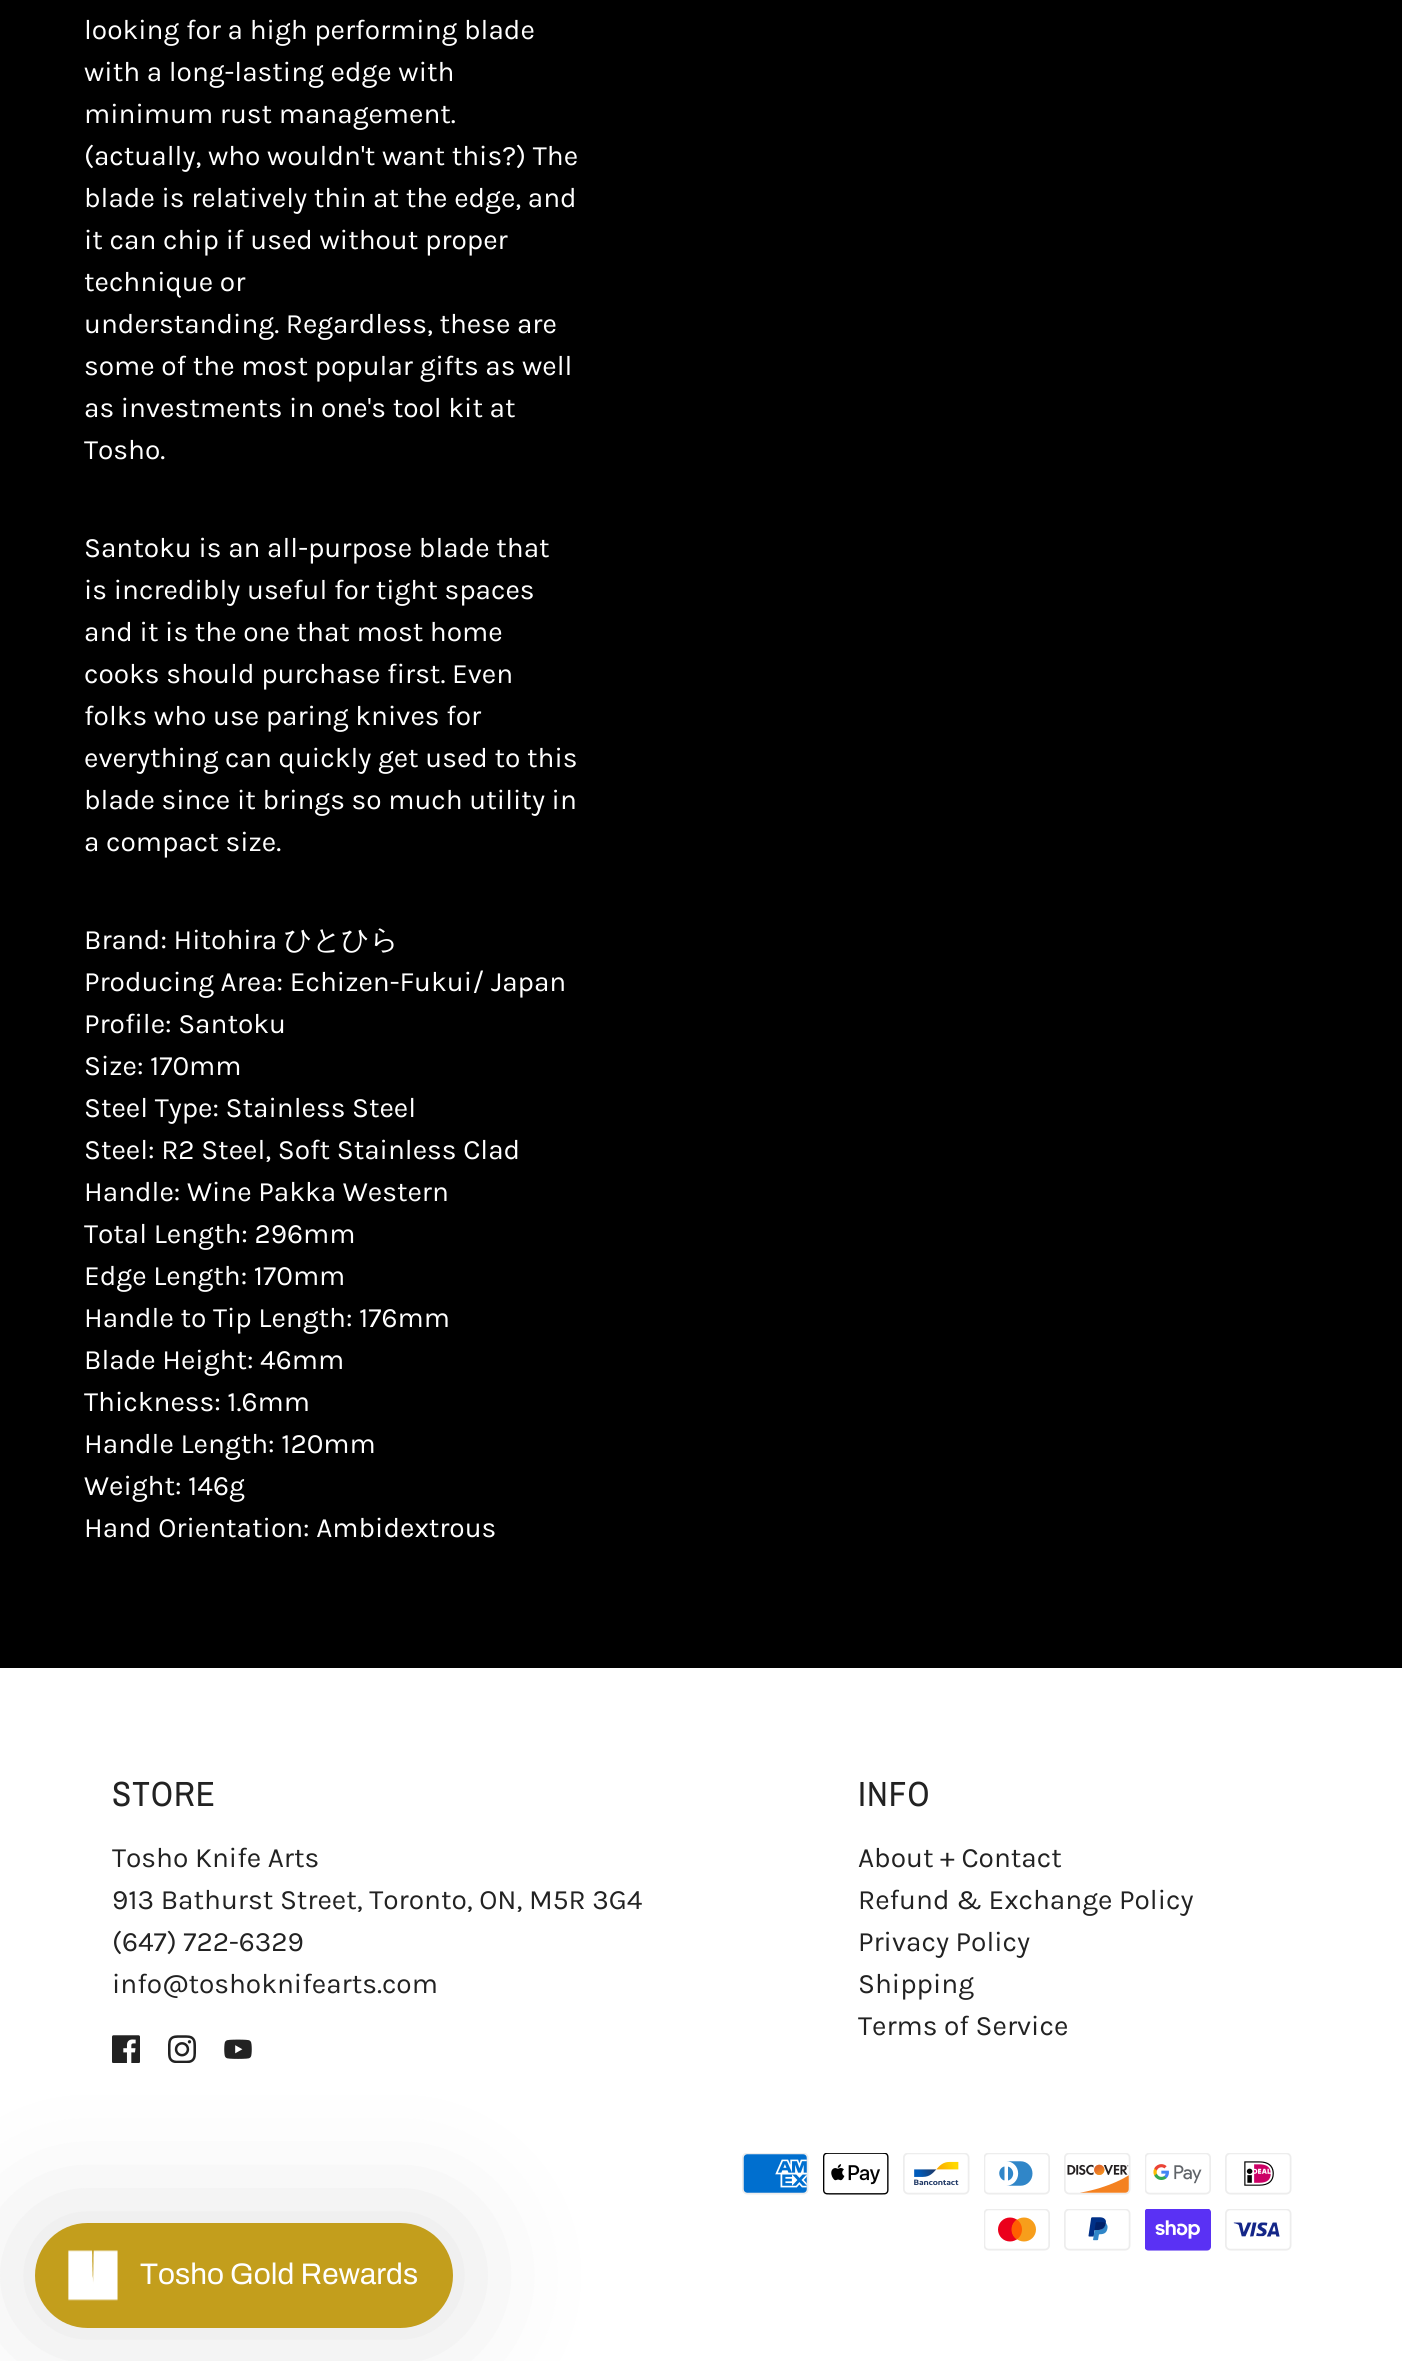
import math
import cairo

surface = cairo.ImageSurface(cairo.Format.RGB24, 1402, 2361)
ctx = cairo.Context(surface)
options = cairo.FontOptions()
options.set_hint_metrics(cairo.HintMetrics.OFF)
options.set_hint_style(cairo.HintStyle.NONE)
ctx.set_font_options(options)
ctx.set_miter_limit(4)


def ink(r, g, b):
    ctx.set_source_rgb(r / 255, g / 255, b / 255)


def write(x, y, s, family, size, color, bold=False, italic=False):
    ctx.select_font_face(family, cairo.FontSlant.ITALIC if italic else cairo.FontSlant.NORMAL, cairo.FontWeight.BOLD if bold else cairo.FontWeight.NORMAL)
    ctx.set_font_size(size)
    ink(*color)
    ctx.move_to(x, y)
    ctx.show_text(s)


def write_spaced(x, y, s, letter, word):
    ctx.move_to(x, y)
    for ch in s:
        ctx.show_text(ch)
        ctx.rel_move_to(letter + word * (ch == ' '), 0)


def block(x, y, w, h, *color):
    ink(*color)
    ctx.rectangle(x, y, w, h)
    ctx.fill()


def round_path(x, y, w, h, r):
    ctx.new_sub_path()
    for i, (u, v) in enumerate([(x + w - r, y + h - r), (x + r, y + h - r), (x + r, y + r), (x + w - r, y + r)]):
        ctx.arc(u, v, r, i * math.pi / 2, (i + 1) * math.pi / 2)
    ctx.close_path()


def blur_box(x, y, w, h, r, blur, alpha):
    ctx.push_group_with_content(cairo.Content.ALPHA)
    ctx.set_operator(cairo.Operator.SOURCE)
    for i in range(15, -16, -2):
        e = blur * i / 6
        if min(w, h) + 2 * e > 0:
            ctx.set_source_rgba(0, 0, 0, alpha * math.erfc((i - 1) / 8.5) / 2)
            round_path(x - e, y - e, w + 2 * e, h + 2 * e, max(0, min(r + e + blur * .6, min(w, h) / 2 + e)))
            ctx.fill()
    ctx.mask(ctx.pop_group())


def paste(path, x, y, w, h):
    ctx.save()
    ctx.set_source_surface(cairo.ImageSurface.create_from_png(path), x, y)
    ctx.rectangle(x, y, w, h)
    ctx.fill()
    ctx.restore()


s1 = dict(family="Karla", size=28, color=(255, 255, 255))
s2 = dict(family="WenQuanYi Zen Hei Medium", size=28, color=(255, 255, 255))
s3 = dict(family="Karla", size=28, color=(34, 34, 34))
s4 = dict(family="Archivo", size=29.75, color=(255, 255, 255))

ink(0, 0, 0)
ctx.paint()
write(84, 39, "looking for a high performing blade", **s1)
write(84, 81, "with a long-lasting edge with", **s1)
write(84, 123, "minimum rust management.", **s1)
write(84, 165, "(actually, who wouldn't want this?) The", **s1)
write(84, 207, "blade is relatively thin at the edge, and", **s1)
write(84, 249, "it can chip if used without proper", **s1)
write(84, 291, "technique or", **s1)
write(84, 333, "understanding. Regardless, these are", **s1)
write(84, 375, "some of the most popular gifts as well", **s1)
write(84, 417, "as investments in one's tool kit at", **s1)
write(84, 459, "Tosho.", **s1)
write(84, 557, "Santoku is an all-purpose blade that", **s1)
write(84, 599, "is incredibly useful for tight spaces", **s1)
write(84, 641, "and it is the one that most home", **s1)
write(84, 683, "cooks should purchase first. Even", **s1)
write(84, 725, "folks who use paring knives for", **s1)
write(84, 767, "everything can quickly get used to this", **s1)
write(84, 809, "blade since it brings so much utility in", **s1)
write(84, 851, "a compact size.", **s1)
write(84, 949, "Brand: Hitohira", **s1)
write(284, 949, "ひとひら", **s2)
write(84, 991, "Producing Area: Echizen-Fukui/ Japan", **s1)
write(84, 1033, "Profile: Santoku", **s1)
write(84, 1075, "Size: 170mm", **s1)
write(84, 1117, "Steel Type: Stainless Steel", **s1)
write(84, 1159, "Steel: R2 Steel, Soft Stainless Clad", **s1)
write(84, 1201, "Handle: Wine Pakka Western", **s1)
write(84, 1243, "Total Length: 296mm", **s1)
write(84, 1285, "Edge Length: 170mm", **s1)
write(84, 1327, "Handle to Tip Length: 176mm", **s1)
write(84, 1369, "Blade Height: 46mm", **s1)
write(84, 1411, "Thickness: 1.6mm", **s1)
write(84, 1453, "Handle Length: 120mm", **s1)
write(84, 1495, "Weight: 146g", **s1)
write(84, 1537, "Hand Orientation: Ambidextrous", **s1)
block(0, 1668, 1402, 693, 255, 255, 255)
ctx.select_font_face("Archivo Narrow")
ctx.set_font_size(35)
ink(34, 34, 34)
write_spaced(112, 1806, "STORE", 1, 0)
write(112, 1867, "Tosho Knife Arts", **s3)
write(112, 1909, "913 Bathurst Street, Toronto, ON, M5R 3G4", **s3)
write(112, 1951, "(647) 722-6329", **s3)
write(112, 1993, "info@toshoknifearts.com", **s3)
paste("pic1.png", 112, 2035, 28, 28)
paste("pic2.png", 168, 2035, 28, 28)
paste("pic3.png", 224, 2039, 28, 20)
ctx.select_font_face("Archivo Narrow")
ctx.set_font_size(35)
write_spaced(858, 1806, "INFO", 1, 0)
write(858, 1867, "About + Contact", **s3)
write(858, 1909, "Refund & Exchange Policy", **s3)
write(858, 1951, "Privacy Policy", **s3)
write(858, 1993, "Shipping", **s3)
write(858, 2035, "Terms of Service", **s3)
paste("pic4.png", 742, 2153, 67, 42)
paste("pic5.png", 823, 2153, 66, 42)
paste("pic6.png", 903, 2153, 67, 42)
paste("pic7.png", 984, 2153, 66, 42)
paste("pic8.png", 1064, 2153, 67, 42)
paste("pic9.png", 1145, 2153, 66, 42)
paste("pic10.png", 1225, 2153, 67, 42)
paste("pic11.png", 984, 2209, 66, 42)
paste("pic12.png", 1064, 2209, 67, 42)
paste("pic13.png", 1145, 2209, 66, 42)
paste("pic14.png", 1225, 2209, 67, 42)
ink(0, 0, 0)
blur_box(35, 2223, 418, 105, 52.5, 70, 0.12)
ink(195, 158, 28)
round_path(35, 2223, 418, 105, 52.5)
ctx.fill()
paste("pic15.png", 68, 2250, 50, 51)
write(140, 2284, "Tosho Gold Rewards", **s4)
surface.write_to_png("screenshot.png")
